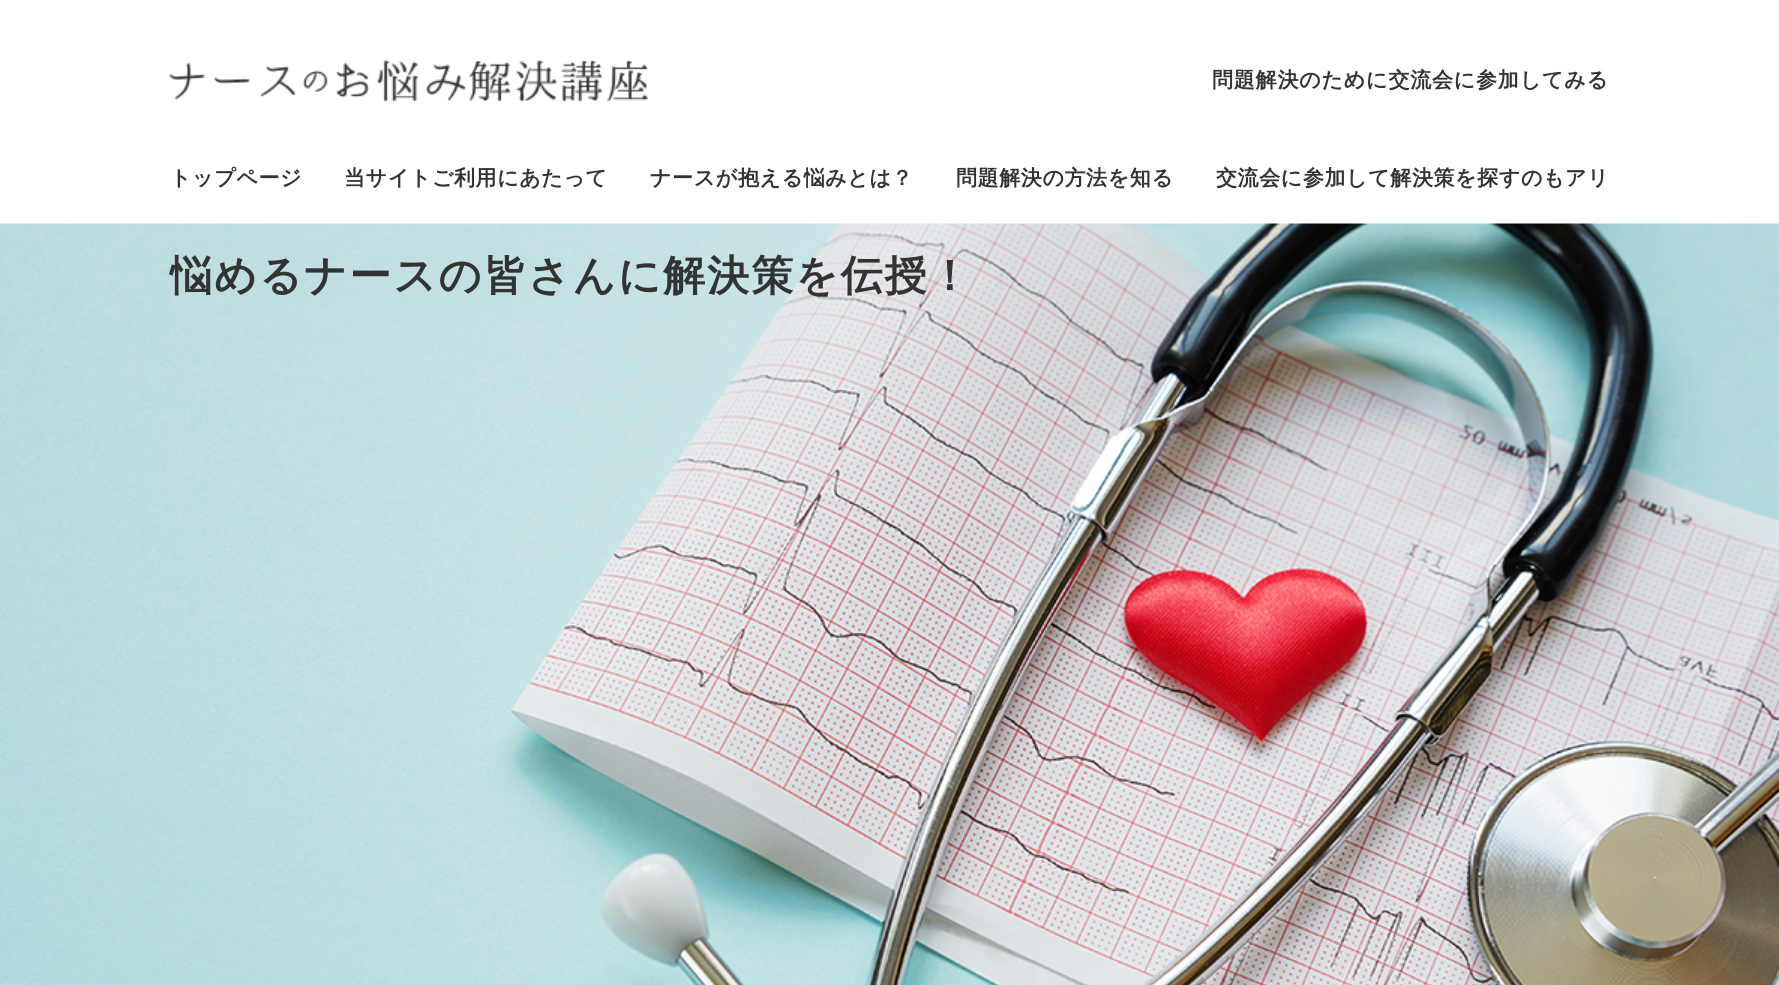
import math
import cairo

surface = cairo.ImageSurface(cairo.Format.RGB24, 1779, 985)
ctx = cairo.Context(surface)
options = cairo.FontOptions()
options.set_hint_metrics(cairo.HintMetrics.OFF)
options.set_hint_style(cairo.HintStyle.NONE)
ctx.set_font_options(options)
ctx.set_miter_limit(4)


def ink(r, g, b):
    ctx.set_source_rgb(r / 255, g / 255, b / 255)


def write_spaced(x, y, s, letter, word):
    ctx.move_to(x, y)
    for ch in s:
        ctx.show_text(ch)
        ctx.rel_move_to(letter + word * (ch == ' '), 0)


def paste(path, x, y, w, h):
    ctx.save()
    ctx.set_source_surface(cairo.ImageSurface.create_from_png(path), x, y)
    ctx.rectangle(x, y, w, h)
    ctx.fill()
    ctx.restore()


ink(255, 255, 255)
ctx.paint()
paste("pic1.png", 169, 60, 479, 42)
ctx.select_font_face("WenQuanYi Zen Hei", cairo.FontSlant.NORMAL, cairo.FontWeight.BOLD)
ctx.set_font_size(21)
ink(51, 51, 51)
write_spaced(1212, 87, "問題解決のために交流会に参加してみる", 0.8, 0)
write_spaced(170, 185, "トップページ", 0.6, 0)
write_spaced(344, 185, "当サイトご利用にあたって", 0.6, 0)
write_spaced(650, 185, "ナースが抱える悩みとは？", 0.6, 0)
write_spaced(956, 185, "問題解決の方法を知る", 0.6, 0)
write_spaced(1216, 185, "交流会に参加して解決策を探すのもアリ", 0.6, 0)
paste("pic2.png", 0, 223, 1779, 762)
ctx.set_font_size(42)
write_spaced(170, 290, "悩めるナースの皆さんに解決策を伝授！", 2.1, 0)
surface.write_to_png("screenshot.png")
